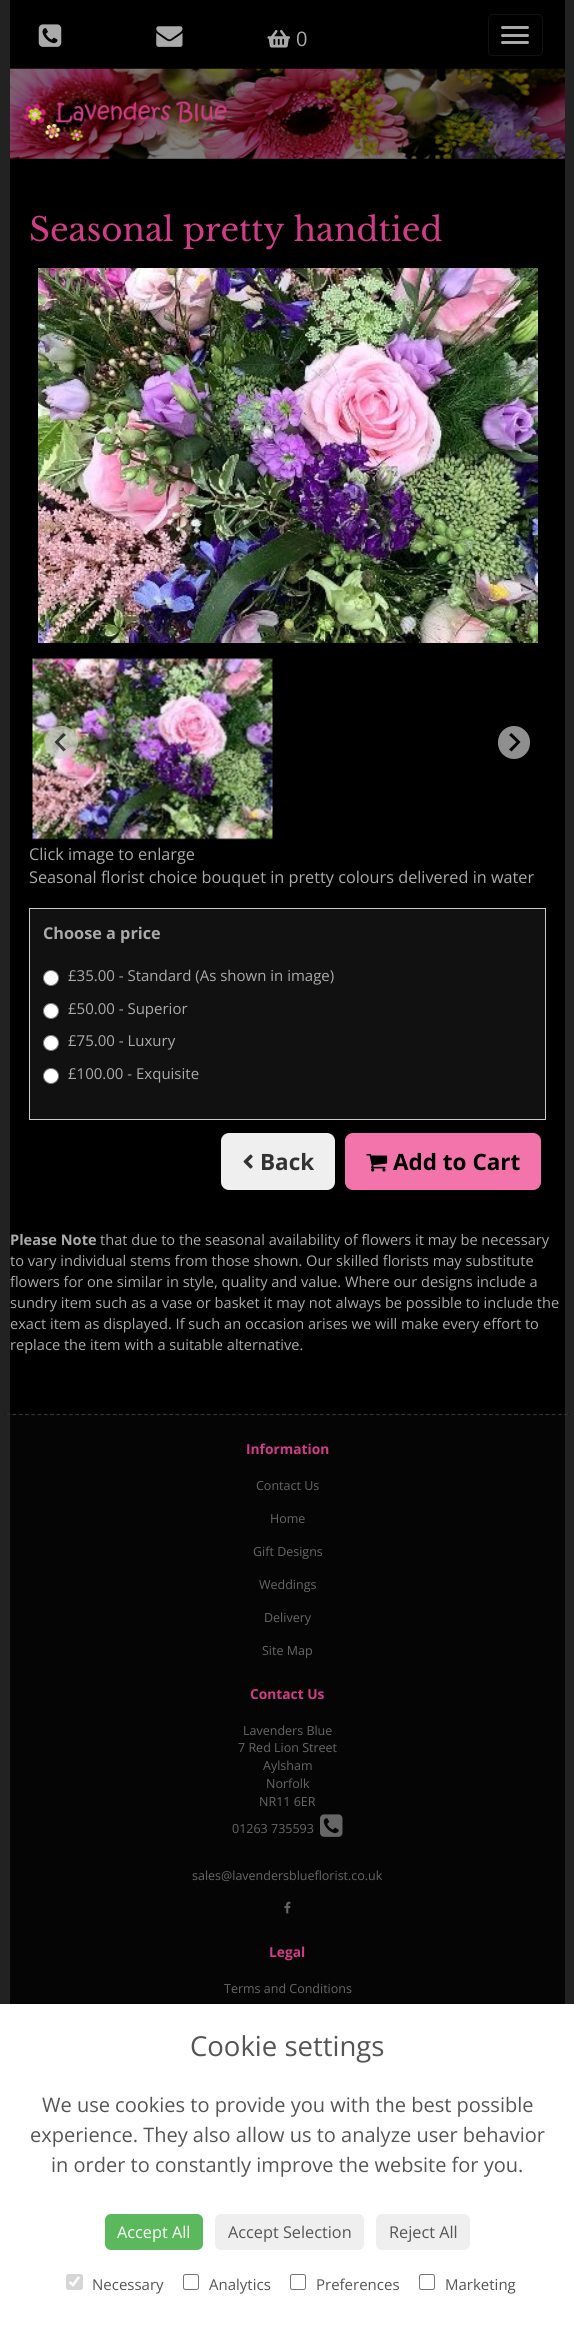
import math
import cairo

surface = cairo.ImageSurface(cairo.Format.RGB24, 574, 2327)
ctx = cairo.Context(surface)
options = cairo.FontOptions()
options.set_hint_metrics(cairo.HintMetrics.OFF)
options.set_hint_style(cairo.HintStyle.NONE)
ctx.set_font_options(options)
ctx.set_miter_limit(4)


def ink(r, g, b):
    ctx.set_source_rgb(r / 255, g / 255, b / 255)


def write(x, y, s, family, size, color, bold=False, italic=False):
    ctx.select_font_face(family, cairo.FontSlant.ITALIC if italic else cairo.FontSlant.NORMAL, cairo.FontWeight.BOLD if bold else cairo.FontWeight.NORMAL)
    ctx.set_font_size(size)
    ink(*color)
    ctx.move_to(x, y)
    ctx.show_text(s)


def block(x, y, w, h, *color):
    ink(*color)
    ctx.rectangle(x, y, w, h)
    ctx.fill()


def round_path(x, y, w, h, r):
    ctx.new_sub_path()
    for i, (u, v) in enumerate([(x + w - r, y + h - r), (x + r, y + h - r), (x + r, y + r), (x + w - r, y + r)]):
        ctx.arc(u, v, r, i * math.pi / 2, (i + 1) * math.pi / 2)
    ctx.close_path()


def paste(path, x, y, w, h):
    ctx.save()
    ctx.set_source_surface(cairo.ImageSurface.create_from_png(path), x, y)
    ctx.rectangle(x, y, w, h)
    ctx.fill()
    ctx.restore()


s1 = dict(family="Open Sans", size=20, color=(170, 170, 170))
s2 = dict(family="Libre Baskerville", size=32.5, color=(208, 61, 134))
s3 = dict(family="Open Sans", size=16.25, color=(170, 170, 170))
s4 = dict(family="Open Sans", size=16.25, color=(170, 170, 170), bold=True)
s5 = dict(family="Open Sans", size=15, color=(170, 170, 170))
s6 = dict(family="Open Sans", size=22.5, color=(51, 51, 51), bold=True)
s7 = dict(family="Open Sans", size=22.5, color=(0, 0, 0), bold=True)
s8 = dict(family="Open Sans", size=14.6, color=(170, 170, 170), bold=True)
s9 = dict(family="Open Sans", size=14.6, color=(170, 170, 170))
s10 = dict(family="Open Sans", size=13.75, color=(208, 61, 134), bold=True)
s11 = dict(family="Open Sans", size=12.5, color=(102, 102, 102))
s12 = dict(family="Open Sans", size=27.5, color=(85, 85, 85))
s13 = dict(family="Open Sans", size=20, color=(85, 85, 85))
s14 = dict(family="Open Sans", size=16.25, color=(255, 255, 255))
s15 = dict(family="Open Sans", size=16.25, color=(85, 85, 85))
s16 = dict(family="Open Sans", size=15, color=(85, 85, 85))

ink(0, 0, 0)
ctx.paint()
block(565, 0, 9, 1414, 34, 34, 34)
block(0, 0, 10, 1414, 34, 34, 34)
paste("pic1.png", 10, 68, 555, 91)
paste("pic2.png", 38, 24, 24, 23)
paste("pic3.png", 156, 26, 27, 21)
paste("pic4.png", 267, 30, 23, 18)
write(296, 46, "0", **s1)
round_path(488.5, 14.5, 54, 41, 4.5)
ink(17, 17, 17)
ctx.set_line_width(1)
ctx.stroke()
ink(170, 170, 170)
round_path(501, 26, 28, 3, 1.5)
ctx.fill()
round_path(501, 34, 28, 3, 1.5)
ctx.fill()
round_path(501, 41, 28, 3, 1.5)
ctx.fill()
write(29, 241, "Seasonal pretty handtied", **s2)
paste("pic5.png", 38, 268, 500, 375)
paste("pic6.png", 32, 658, 241, 182)
ctx.set_source_rgba(0.8, 0.8, 0.8, 0.7)
ctx.arc(61.5, 742.5, 16.5, 0, 2 * math.pi)
ctx.fill()
ctx.set_source_rgba(0, 0, 0, 0.7)
ctx.new_path()
ctx.move_to(63.5, 733)
ctx.line_to(66, 735)
ctx.line_to(58.5, 742)
ctx.line_to(66, 749.5)
ctx.line_to(63.5, 751.5)
ctx.line_to(54.5, 742)
ctx.close_path()
ctx.fill()
ink(143, 143, 143)
round_path(498, 726, 32, 33, 16)
ctx.fill()
ink(0, 0, 0)
ctx.new_path()
ctx.move_to(511.5, 733)
ctx.line_to(509, 735)
ctx.line_to(516.5, 742)
ctx.line_to(509, 749.5)
ctx.line_to(511.5, 751.5)
ctx.line_to(520.5, 742)
ctx.close_path()
ctx.fill()
write(29, 860, "Click image to enlarge", **s3)
write(29, 883, "Seasonal florist choice bouquet in pretty colours delivered in water", **s3)
ink(17, 17, 17)
ctx.rectangle(29.5, 908.5, 516, 211)
ctx.fill_preserve()
ink(204, 204, 204)
ctx.stroke()
write(43, 939, "Choose a price", **s4)
ink(255, 255, 255)
ctx.new_path()
ctx.arc(51, 978, 7.5, 0, 2 * math.pi)
ctx.fill_preserve()
ink(118, 118, 118)
ctx.stroke()
write(68, 981, "£35.00 - Standard (As shown in image)", **s5)
ink(255, 255, 255)
ctx.new_path()
ctx.arc(51, 1011, 7.5, 0, 2 * math.pi)
ctx.fill_preserve()
ink(118, 118, 118)
ctx.stroke()
write(68, 1014, "£50.00 - Superior", **s5)
ink(255, 255, 255)
ctx.new_path()
ctx.arc(51, 1043, 7.5, 0, 2 * math.pi)
ctx.fill_preserve()
ink(118, 118, 118)
ctx.stroke()
write(68, 1046, "£75.00 - Luxury", **s5)
ink(255, 255, 255)
ctx.new_path()
ctx.arc(51, 1076, 7.5, 0, 2 * math.pi)
ctx.fill_preserve()
ink(118, 118, 118)
ctx.stroke()
write(68, 1079, "£100.00 - Exquisite", **s5)
ink(239, 239, 239)
round_path(221, 1133, 114, 57, 8)
ctx.fill()
paste("pic7.png", 243, 1154, 10, 15)
write(260, 1170, "Back", **s6)
ink(243, 116, 171)
round_path(345.5, 1133.5, 195, 56, 7.5)
ctx.fill_preserve()
ctx.stroke()
paste("pic8.png", 366, 1153, 22, 19)
write(393, 1170, "Add to Cart", **s7)
write(10, 1245, "Please Note", **s8)
write(100, 1245, "that due to the seasonal availability of flowers it may be necessary", **s9)
write(10, 1266, "to vary individual stems from those shown. Our skilled florists may substitute", **s9)
write(10, 1287, "flowers for one similar in style, quality and value. Where our designs include a", **s9)
write(10, 1308, "sundry item such as a vase or basket it may not always be possible to include the", **s9)
write(10, 1329, "exact item as displayed. If such an occasion arises we will make every effort to", **s9)
write(10, 1350, "replace the item with a suitable alternative.", **s9)
block(3, 1414, 568, 590, 5, 5, 5)
ctx.new_path()
ctx.move_to(0, 1414.5)
ctx.line_to(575, 1414.5)
ink(51, 51, 51)
ctx.set_line_width(1.2)
ctx.set_dash([3.75, 2.52])
ctx.stroke()
ink(34, 34, 34)
ctx.new_path()
ctx.move_to(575, 1414)
ctx.line_to(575, 2224)
ctx.line_to(565, 2224)
ctx.line_to(565, 1415)
ctx.close_path()
ctx.fill()
ctx.new_path()
ctx.move_to(0, 2224)
ctx.line_to(0, 1414)
ctx.line_to(10, 1415)
ctx.line_to(10, 2224)
ctx.close_path()
ctx.fill()
write(246, 1454, "Information", **s10)
write(256, 1490, "Contact Us", **s11)
write(270, 1523, "Home", **s11)
write(253, 1556, "Gift Designs", **s11)
write(259, 1589, "Weddings", **s11)
write(264, 1622, "Delivery", **s11)
write(262, 1655, "Site Map", **s11)
write(250, 1699, "Contact Us", **s10)
write(243, 1735, "Lavenders Blue", **s11)
write(238, 1752, "7 Red Lion Street", **s11)
write(263, 1770, "Aylsham", **s11)
write(266, 1788, "Norfolk", **s11)
write(259, 1806, "NR11 6ER", **s11)
write(232, 1833, "01263 735593", **s11)
paste("pic9.png", 320, 1814, 23, 23)
write(192, 1880, "sales@lavendersblueflorist.co.uk", **s11)
paste("pic10.png", 284, 1901, 7, 13)
write(269, 1957, "Legal", **s10)
write(224, 1993, "Terms and Conditions", **s11)
block(0, 2004, 574, 323, 255, 255, 255)
write(190, 2056, "Cookie settings", **s12)
write(42, 2112, "We use cookies to provide you with the best possible", **s13)
write(30, 2142, "experience. They also allow us to analyze user behavior", **s13)
write(51, 2172, "in order to constantly improve the website for you.", **s13)
ink(92, 184, 92)
round_path(105, 2214, 98, 36, 6)
ctx.fill()
write(117, 2238, "Accept All", **s14)
ink(239, 239, 239)
round_path(215, 2214, 149, 36, 6)
ctx.fill()
write(228, 2238, "Accept Selection", **s15)
ink(239, 239, 239)
round_path(376, 2214, 94, 36, 6)
ctx.fill()
write(389, 2238, "Reject All", **s15)
ink(214, 214, 214)
round_path(66, 2274, 17, 16, 2.5)
ctx.fill()
ctx.new_path()
ctx.move_to(69.5, 2282)
ctx.line_to(73, 2285)
ctx.line_to(79, 2277)
ink(255, 255, 255)
ctx.set_line_width(2.6)
ctx.set_dash([])
ctx.stroke()
write(92, 2290, "Necessary", **s16)
round_path(183.5, 2274.5, 15, 15, 2)
ink(118, 118, 118)
ctx.set_line_width(1)
ctx.stroke()
write(209, 2290, "Analytics", **s16)
round_path(290.5, 2274.5, 15, 15, 2)
ink(118, 118, 118)
ctx.stroke()
write(316, 2290, "Preferences", **s16)
round_path(419.5, 2274.5, 15, 15, 2)
ink(118, 118, 118)
ctx.stroke()
write(445, 2290, "Marketing", **s16)
surface.write_to_png("screenshot.png")
